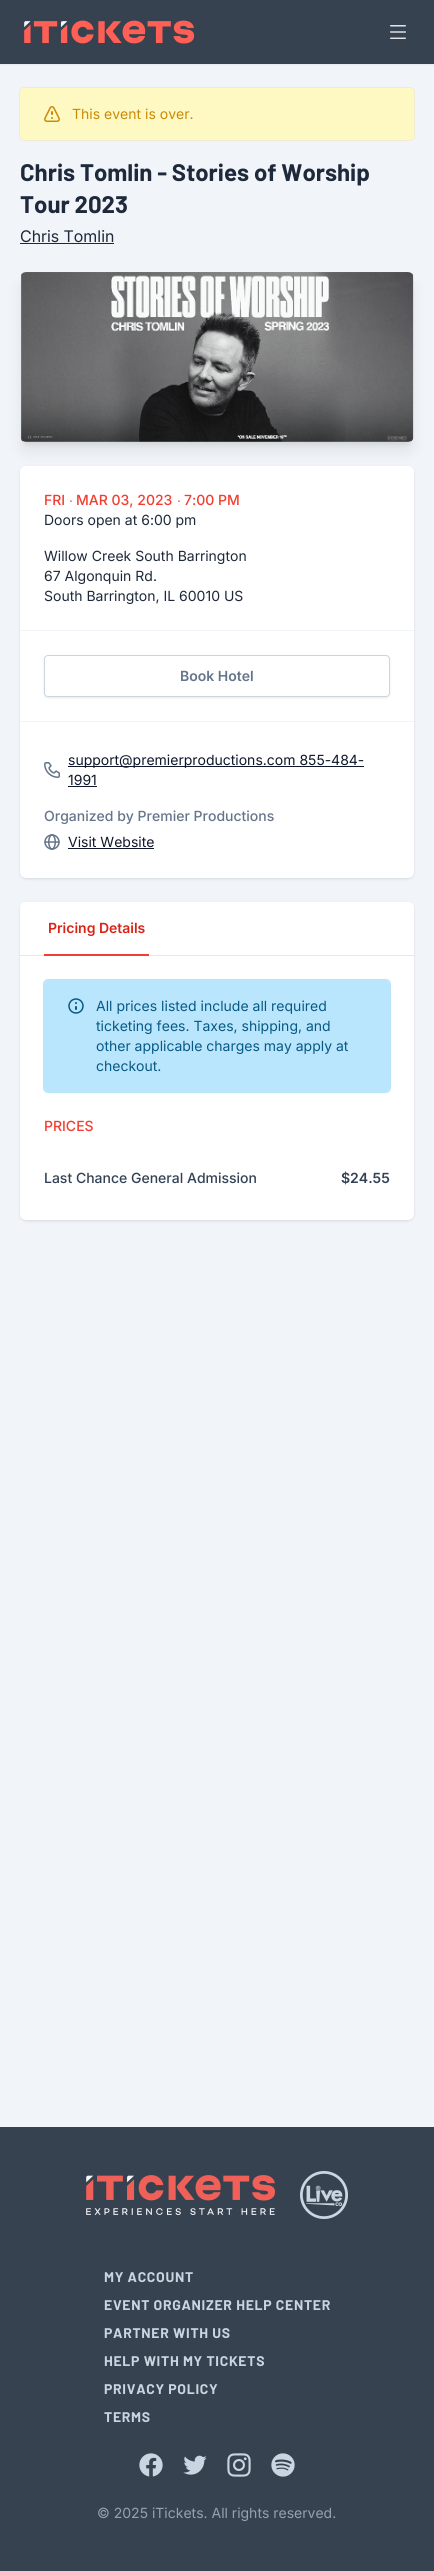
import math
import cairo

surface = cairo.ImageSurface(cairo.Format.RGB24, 434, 2571)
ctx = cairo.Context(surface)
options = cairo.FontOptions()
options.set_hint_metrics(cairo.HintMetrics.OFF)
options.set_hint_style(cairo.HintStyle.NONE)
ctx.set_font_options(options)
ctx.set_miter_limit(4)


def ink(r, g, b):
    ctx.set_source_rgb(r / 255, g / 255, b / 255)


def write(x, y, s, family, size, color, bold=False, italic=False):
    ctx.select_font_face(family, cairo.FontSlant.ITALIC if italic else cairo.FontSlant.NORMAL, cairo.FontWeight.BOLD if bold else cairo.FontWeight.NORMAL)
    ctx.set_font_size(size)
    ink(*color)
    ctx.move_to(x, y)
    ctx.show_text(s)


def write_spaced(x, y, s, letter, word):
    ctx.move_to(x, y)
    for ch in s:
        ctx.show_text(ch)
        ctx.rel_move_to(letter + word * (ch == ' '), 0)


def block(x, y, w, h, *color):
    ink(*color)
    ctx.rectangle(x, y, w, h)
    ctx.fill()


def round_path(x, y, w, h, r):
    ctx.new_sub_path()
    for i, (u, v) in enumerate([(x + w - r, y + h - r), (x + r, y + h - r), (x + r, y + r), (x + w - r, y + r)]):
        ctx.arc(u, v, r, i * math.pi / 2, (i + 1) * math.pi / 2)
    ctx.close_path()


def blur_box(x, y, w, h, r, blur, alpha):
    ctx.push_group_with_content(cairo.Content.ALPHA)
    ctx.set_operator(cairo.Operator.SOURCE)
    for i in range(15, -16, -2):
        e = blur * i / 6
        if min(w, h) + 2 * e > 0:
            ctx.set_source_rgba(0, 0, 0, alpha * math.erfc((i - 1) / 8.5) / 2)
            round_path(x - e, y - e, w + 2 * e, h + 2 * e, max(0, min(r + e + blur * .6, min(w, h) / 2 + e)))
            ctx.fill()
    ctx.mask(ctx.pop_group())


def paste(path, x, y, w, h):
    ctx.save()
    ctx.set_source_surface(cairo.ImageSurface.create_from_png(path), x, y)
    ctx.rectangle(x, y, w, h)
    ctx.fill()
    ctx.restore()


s1 = dict(family="Inter", size=14, color=(202, 138, 4))
s2 = dict(family="Barlow", size=24, color=(30, 41, 59), bold=True)
s3 = dict(family="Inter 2", size=16, color=(30, 41, 59))
s4 = dict(family="Inter Medium", size=14, color=(243, 61, 48))
s5 = dict(family="Liberation Sans", size=14, color=(243, 61, 48))
s6 = dict(family="Inter", size=14, color=(30, 41, 59))
s7 = dict(family="Inter SemiBold", size=14, color=(100, 116, 139))
s8 = dict(family="Inter", size=14, color=(15, 23, 42))
s9 = dict(family="Inter Medium", size=14, color=(100, 116, 139))
s10 = dict(family="Inter SemiBold", size=14, color=(218, 35, 22))
s11 = dict(family="Inter", size=14, color=(7, 89, 133))
s12 = dict(family="Inter Medium", size=14, color=(51, 65, 85))
s13 = dict(family="Inter SemiBold", size=14, color=(51, 65, 85))
s14 = dict(family="Inter", size=14, color=(149, 161, 172))

ink(241, 245, 249)
ctx.paint()
ink(0, 0, 0)
blur_box(0, 1, 434, 64, 0, 1, 0.05)
block(0, 0, 434, 64, 54, 66, 79)
paste("pic1.png", 24, 20, 170, 24)
paste("pic2.png", 390, 25, 16, 14)
round_path(19.5, 87.5, 395, 53, 4.5)
ink(240, 235, 213)
ctx.set_line_width(1)
ctx.stroke()
ink(254, 249, 195)
round_path(20, 88, 394, 52, 4)
ctx.fill()
paste("pic3.png", 44, 106, 16, 16)
write(72, 119, "This event is over.", **s1)
write(20, 181, "Chris Tomlin - Stories of Worship", **s2)
write(20, 213, "Tour 2023", **s2)
write(20, 242, "Chris Tomlin", **s3)
block(20, 243, 94, 1, 30, 41, 59)
ink(0, 0, 0)
blur_box(24, 280, 386, 162, 2, 3, 0.1)
blur_box(23, 285, 388, 164, 3, 7.5, 0.1)
paste("pic4.png", 21, 272, 393, 170)
ink(37, 45, 55)
blur_box(21, 468, 392, 410, 5, 1, 0.1)
blur_box(20, 467, 394, 412, 6, 1.5, 0.1)
ink(255, 255, 255)
round_path(20, 466, 394, 412, 6)
ctx.fill()
write(44, 505, "FRI", **s4)
write(69, 505, "∙", **s5)
write(76, 505, "MAR 03, 2023", **s4)
write(177, 505, "∙", **s5)
write(184, 505, "7:00 PM", **s4)
write(44, 525, "Doors open at 6:00 pm", **s6)
write(44, 561, "Willow Creek South Barrington", **s6)
write(44, 581, "67 Algonquin Rd.", **s6)
write(44, 601, "South Barrington, IL 60010 US", **s6)
block(20, 630, 394, 1, 241, 245, 249)
ink(37, 45, 55)
blur_box(44, 656, 346, 42, 4, 1, 0.1)
ink(255, 255, 255)
round_path(44.5, 655.5, 345, 41, 3.5)
ctx.fill_preserve()
ink(203, 213, 225)
ctx.stroke()
write(180, 681, "Book Hotel", **s7)
block(20, 721, 394, 1, 241, 245, 249)
paste("pic5.png", 44, 762, 16, 16)
block(68, 766, 296, 1, 15, 23, 42)
write(68, 765, "support@premierproductions.com 855-484-", **s8)
write(68, 785, "1991", **s8)
block(68, 786, 29, 1, 15, 23, 42)
write(44, 821, "Organized by Premier Productions", **s9)
paste("pic6.png", 44, 834, 16, 16)
write(68, 847, "Visit Website", **s8)
block(68, 848, 86, 1, 15, 23, 42)
ink(37, 45, 55)
blur_box(21, 904, 392, 316, 5, 1, 0.1)
blur_box(20, 903, 394, 318, 6, 1.5, 0.1)
ink(255, 255, 255)
round_path(20, 902, 394, 318, 6)
ctx.fill()
block(20, 955, 394, 1, 226, 232, 240)
block(44, 954, 105, 2, 243, 61, 48)
write(48, 933, "Pricing Details", **s10)
round_path(43.5, 979.5, 347, 113, 4.5)
ink(183, 228, 248)
ctx.stroke()
ink(186, 230, 253)
round_path(44, 980, 346, 112, 4)
ctx.fill()
paste("pic7.png", 68, 998, 16, 16)
write(96, 1011, "All prices listed include all required", **s11)
write(96, 1031, "ticketing fees. Taxes, shipping, and", **s11)
write(96, 1051, "other applicable charges may apply at", **s11)
write(96, 1071, "checkout.", **s11)
write(44, 1131, "PRICES", **s4)
write(44, 1183, "Last Chance General Admission", **s12)
write(341, 1183, "$24.55", **s13)
block(0, 2127, 434, 444, 54, 66, 79)
paste("pic8.png", 86, 2175, 189, 40)
paste("pic9.png", 300, 2171, 48, 48)
ctx.select_font_face("Barlow", cairo.FontSlant.NORMAL, cairo.FontWeight.BOLD)
ink(203, 213, 225)
write_spaced(104, 2282, "MY ACCOUNT", 0.7, 0)
write_spaced(104, 2310, "EVENT ORGANIZER HELP CENTER", 0.7, 0)
write_spaced(104, 2338, "PARTNER WITH US", 0.7, 0)
write_spaced(104, 2366, "HELP WITH MY TICKETS", 0.7, 0)
write_spaced(104, 2394, "PRIVACY POLICY", 0.7, 0)
write_spaced(104, 2422, "TERMS", 0.7, 0)
paste("pic10.png", 139, 2453, 24, 24)
paste("pic11.png", 183, 2455, 24, 20)
paste("pic12.png", 227, 2453, 24, 24)
paste("pic13.png", 271, 2453, 24, 24)
write(97, 2518, "© 2025 iTickets. All rights reserved.", **s14)
surface.write_to_png("screenshot.png")
